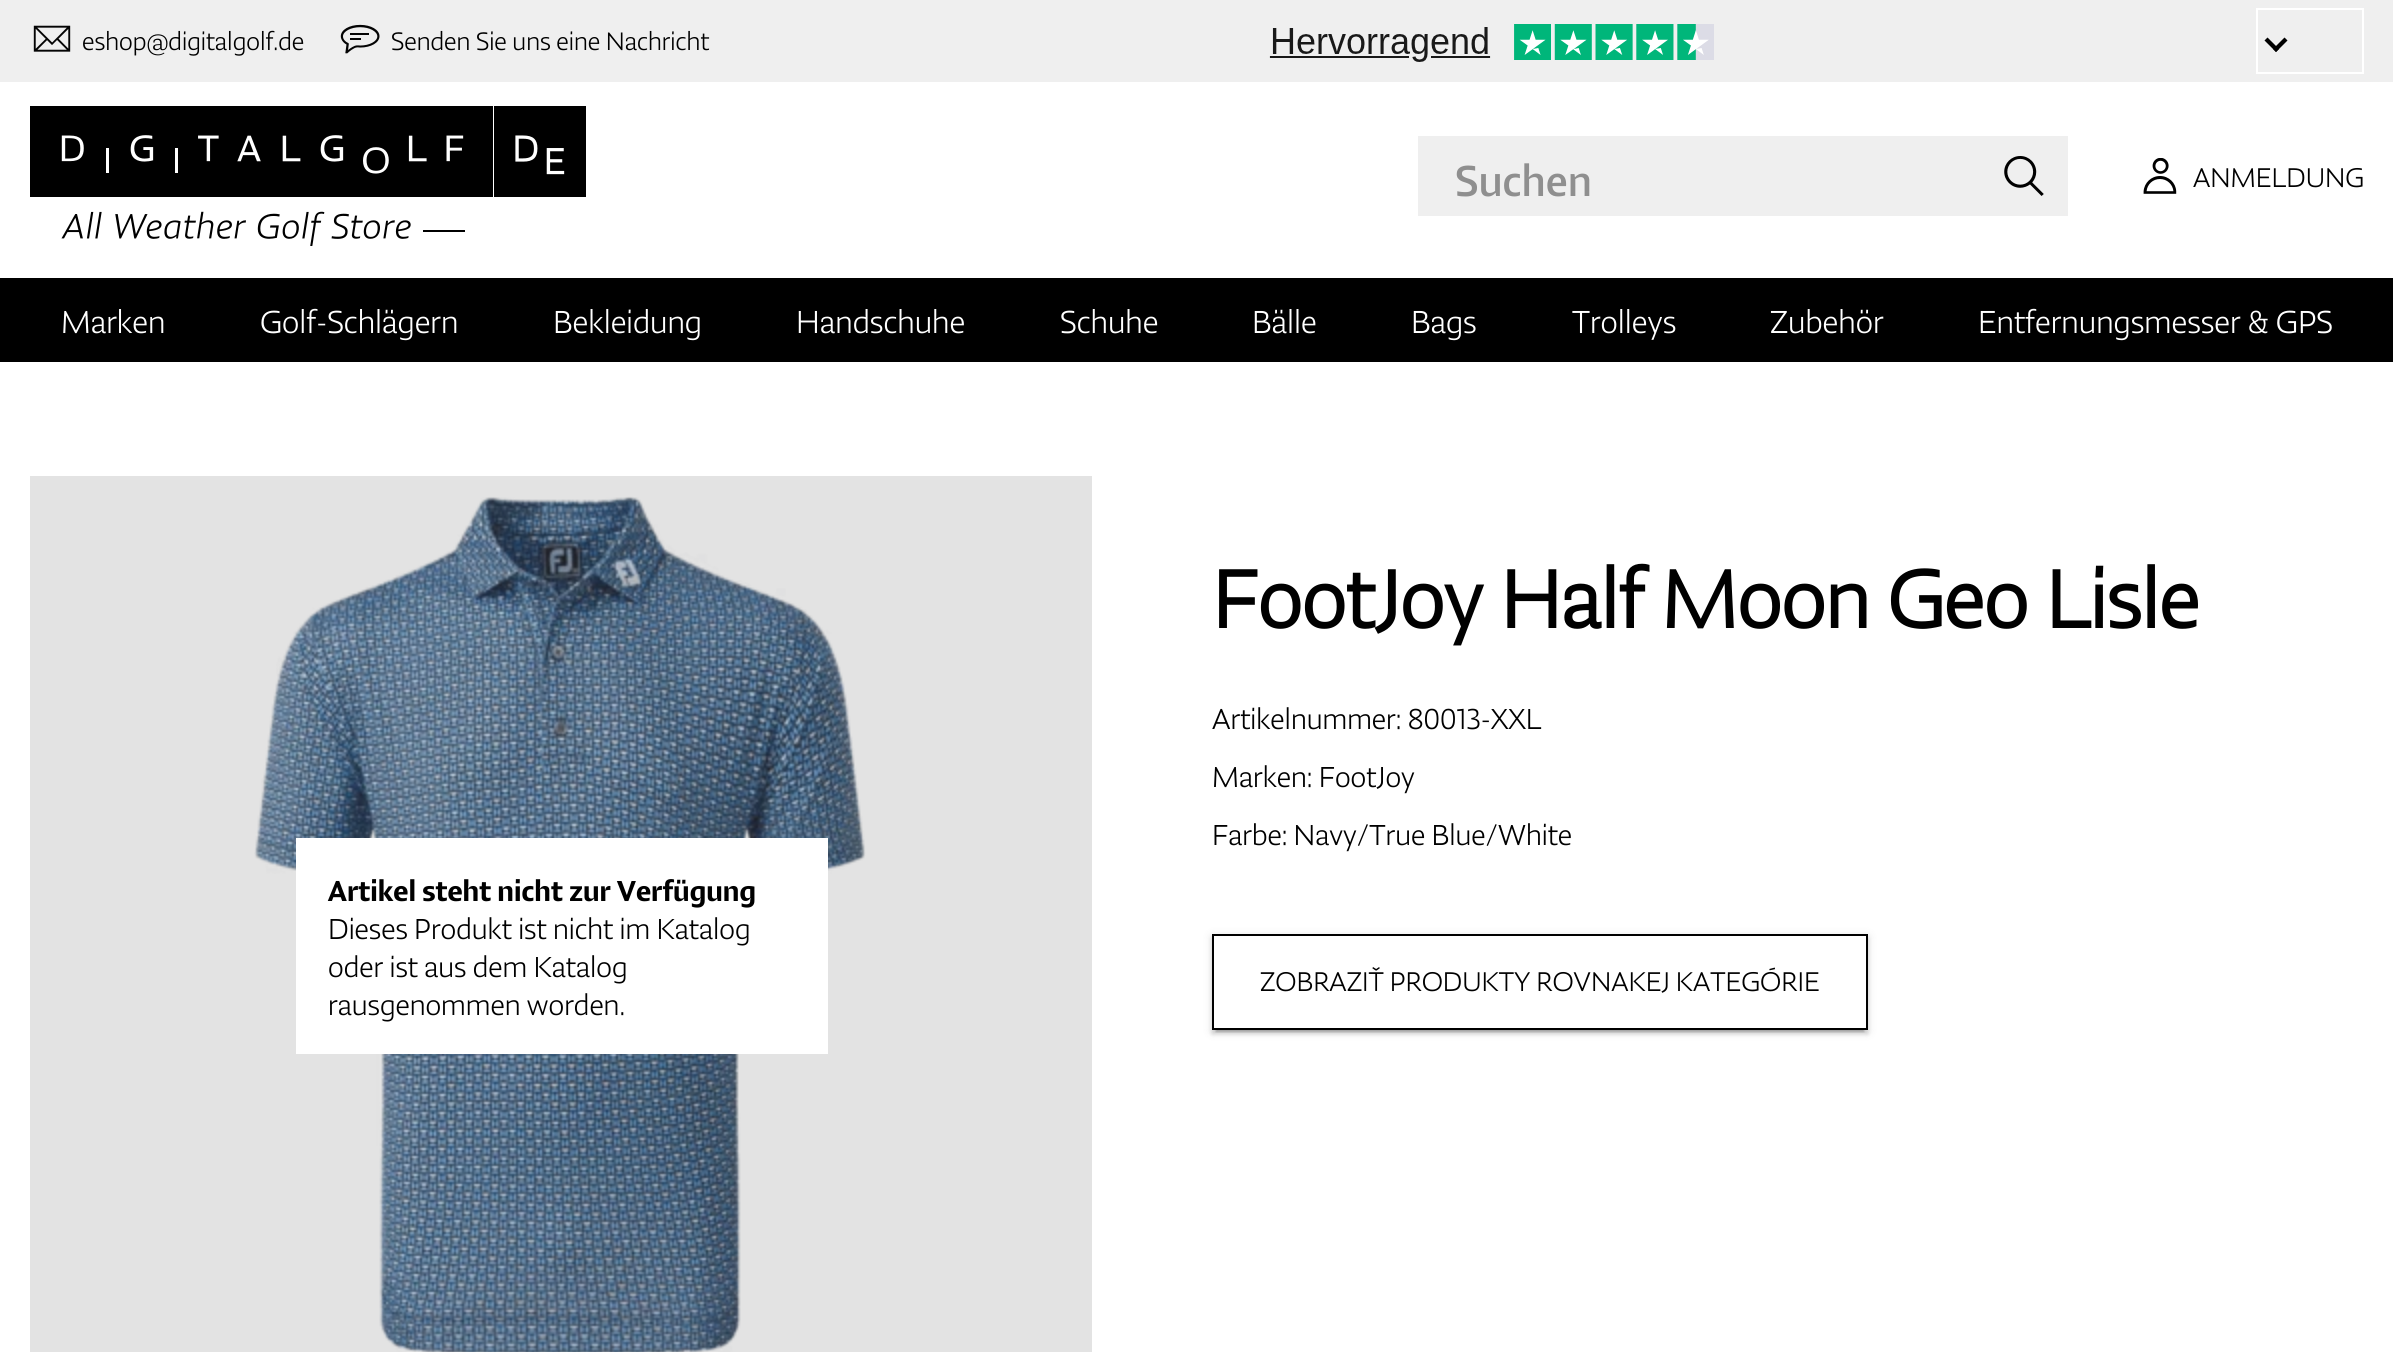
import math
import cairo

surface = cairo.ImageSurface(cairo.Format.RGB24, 2393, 1352)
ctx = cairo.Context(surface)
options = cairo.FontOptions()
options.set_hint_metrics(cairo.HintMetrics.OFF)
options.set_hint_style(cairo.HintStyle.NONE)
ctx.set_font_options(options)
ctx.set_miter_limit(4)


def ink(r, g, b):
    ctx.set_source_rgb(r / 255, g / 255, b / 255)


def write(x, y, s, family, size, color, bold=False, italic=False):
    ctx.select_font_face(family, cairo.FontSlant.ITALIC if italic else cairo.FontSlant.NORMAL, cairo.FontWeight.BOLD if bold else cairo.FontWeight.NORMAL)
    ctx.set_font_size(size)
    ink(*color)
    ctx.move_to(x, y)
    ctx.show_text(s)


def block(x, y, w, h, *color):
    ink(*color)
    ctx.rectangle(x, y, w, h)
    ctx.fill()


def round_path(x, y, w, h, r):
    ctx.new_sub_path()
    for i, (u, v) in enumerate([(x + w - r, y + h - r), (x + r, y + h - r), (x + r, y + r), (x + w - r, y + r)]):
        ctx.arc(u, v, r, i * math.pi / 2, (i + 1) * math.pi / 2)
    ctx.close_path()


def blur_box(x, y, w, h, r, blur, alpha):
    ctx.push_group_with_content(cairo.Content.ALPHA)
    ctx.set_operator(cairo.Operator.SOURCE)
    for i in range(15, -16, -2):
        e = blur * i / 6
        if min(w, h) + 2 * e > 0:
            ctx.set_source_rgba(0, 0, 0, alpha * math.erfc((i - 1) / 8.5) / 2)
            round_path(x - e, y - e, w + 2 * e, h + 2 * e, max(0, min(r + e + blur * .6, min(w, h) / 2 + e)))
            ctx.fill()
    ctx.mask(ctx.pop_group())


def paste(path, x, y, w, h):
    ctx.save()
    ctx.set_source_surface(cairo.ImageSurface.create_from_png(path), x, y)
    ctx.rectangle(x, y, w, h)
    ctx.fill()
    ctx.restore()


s1 = dict(family="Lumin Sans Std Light", size=28, color=(0, 0, 0))
s2 = dict(family="Lumin Sans Std", size=48, color=(143, 143, 143))
s3 = dict(family="Lumin Sans Std Light", size=30, color=(0, 0, 0))
s4 = dict(family="Lumin Sans Std Light", size=35.25, color=(255, 255, 255))
s5 = dict(family="Lumin Sans Std Medium", size=32, color=(0, 0, 0))
s6 = dict(family="Lumin Sans Std Light", size=32, color=(0, 0, 0))
s7 = dict(family="Lumin Sans Std", size=90, color=(0, 0, 0), bold=True)

ink(255, 255, 255)
ctx.paint()
block(30, 476, 1062, 876, 227, 227, 227)
block(0, 0, 2393, 82, 239, 239, 239)
paste("pic1.png", 33, 25, 38, 27)
write(82, 50, "eshop@digitalgolf.de", **s1)
paste("pic2.png", 340, 24, 40, 30)
write(391, 50, "Senden Sie uns eine Nachricht", **s1)
paste("pic3.png", 1269, 24, 445, 38)
ctx.rectangle(2257, 9, 106, 64)
ink(255, 255, 255)
ctx.stroke()
ink(0, 0, 0)
ctx.new_path()
ctx.move_to(2284.5, 37.5)
ctx.line_to(2287.5, 40.5)
ctx.line_to(2276, 52)
ctx.line_to(2273, 49)
ctx.close_path()
ctx.fill()
ctx.new_path()
ctx.move_to(2267.5, 37.5)
ctx.line_to(2279, 49)
ctx.line_to(2276, 52)
ctx.line_to(2264.5, 40.5)
ctx.close_path()
ctx.fill()
paste("pic4.png", 30, 106, 556, 140)
block(1418, 136, 650, 80, 239, 239, 239)
write(1455, 196, "Suchen", **s2)
paste("pic5.png", 2004, 156, 40, 40)
paste("pic6.png", 2143, 158, 34, 36)
write(2193, 187, "ANMELDUNG", **s3)
block(0, 278, 2393, 84, 0, 0, 0)
write(61, 333, "Marken", **s4)
write(260, 333, "Golf-Schlägern", **s4)
write(553, 333, "Bekleidung", **s4)
write(796, 333, "Handschuhe", **s4)
write(1060, 333, "Schuhe", **s4)
write(1252, 333, "Bälle", **s4)
write(1411, 333, "Bags", **s4)
write(1572, 333, "Trolleys", **s4)
write(1770, 333, "Zubehör", **s4)
write(1978, 333, "Entfernungsmesser & GPS", **s4)
paste("pic7.png", 254, 496, 612, 856)
block(296, 838, 532, 216, 255, 255, 255)
write(328, 901, "Artikel steht nicht zur Verfügung", **s5)
write(328, 939, "Dieses Produkt ist nicht im Katalog", **s6)
write(328, 977, "oder ist aus dem Katalog", **s6)
write(328, 1015, "rausgenommen worden.", **s6)
write(1212, 628, "FootJoy Half Moon Geo Lisle", **s7)
write(1212, 729, "Artikelnummer: 80013-XXL", **s6)
write(1212, 787, "Marken: FootJoy", **s6)
write(1212, 845, "Farbe: Navy/True Blue/White", **s6)
ctx.save()
ctx.set_fill_rule(cairo.FillRule.EVEN_ODD)
ctx.new_path()
ctx.move_to(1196, 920)
ctx.line_to(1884, 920)
ctx.line_to(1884, 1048)
ctx.line_to(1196, 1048)
ctx.close_path()
ctx.move_to(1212, 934)
ctx.line_to(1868, 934)
ctx.line_to(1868, 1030)
ctx.line_to(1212, 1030)
ctx.close_path()
ctx.clip()
ink(0, 0, 0)
blur_box(1212, 936, 656, 96, 0, 5, 0.12)
ctx.restore()
ctx.save()
ctx.set_fill_rule(cairo.FillRule.EVEN_ODD)
ctx.new_path()
ctx.move_to(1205, 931)
ctx.line_to(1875, 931)
ctx.line_to(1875, 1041)
ctx.line_to(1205, 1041)
ctx.close_path()
ctx.move_to(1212, 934)
ctx.line_to(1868, 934)
ctx.line_to(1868, 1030)
ctx.line_to(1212, 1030)
ctx.close_path()
ctx.clip()
ink(0, 0, 0)
blur_box(1212, 938, 656, 96, 0, 2, 0.14)
ctx.restore()
ctx.save()
ctx.rectangle(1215, 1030, 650, 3)
ctx.clip()
ink(0, 0, 0)
blur_box(1216, 944, 648, 88, 0, 1, 0.2)
ctx.restore()
ctx.rectangle(1213, 935, 654, 94)
ctx.stroke()
write(1260, 991, "ZOBRAZIŤ PRODUKTY ROVNAKEJ KATEGÓRIE", **s3)
surface.write_to_png("screenshot.png")
